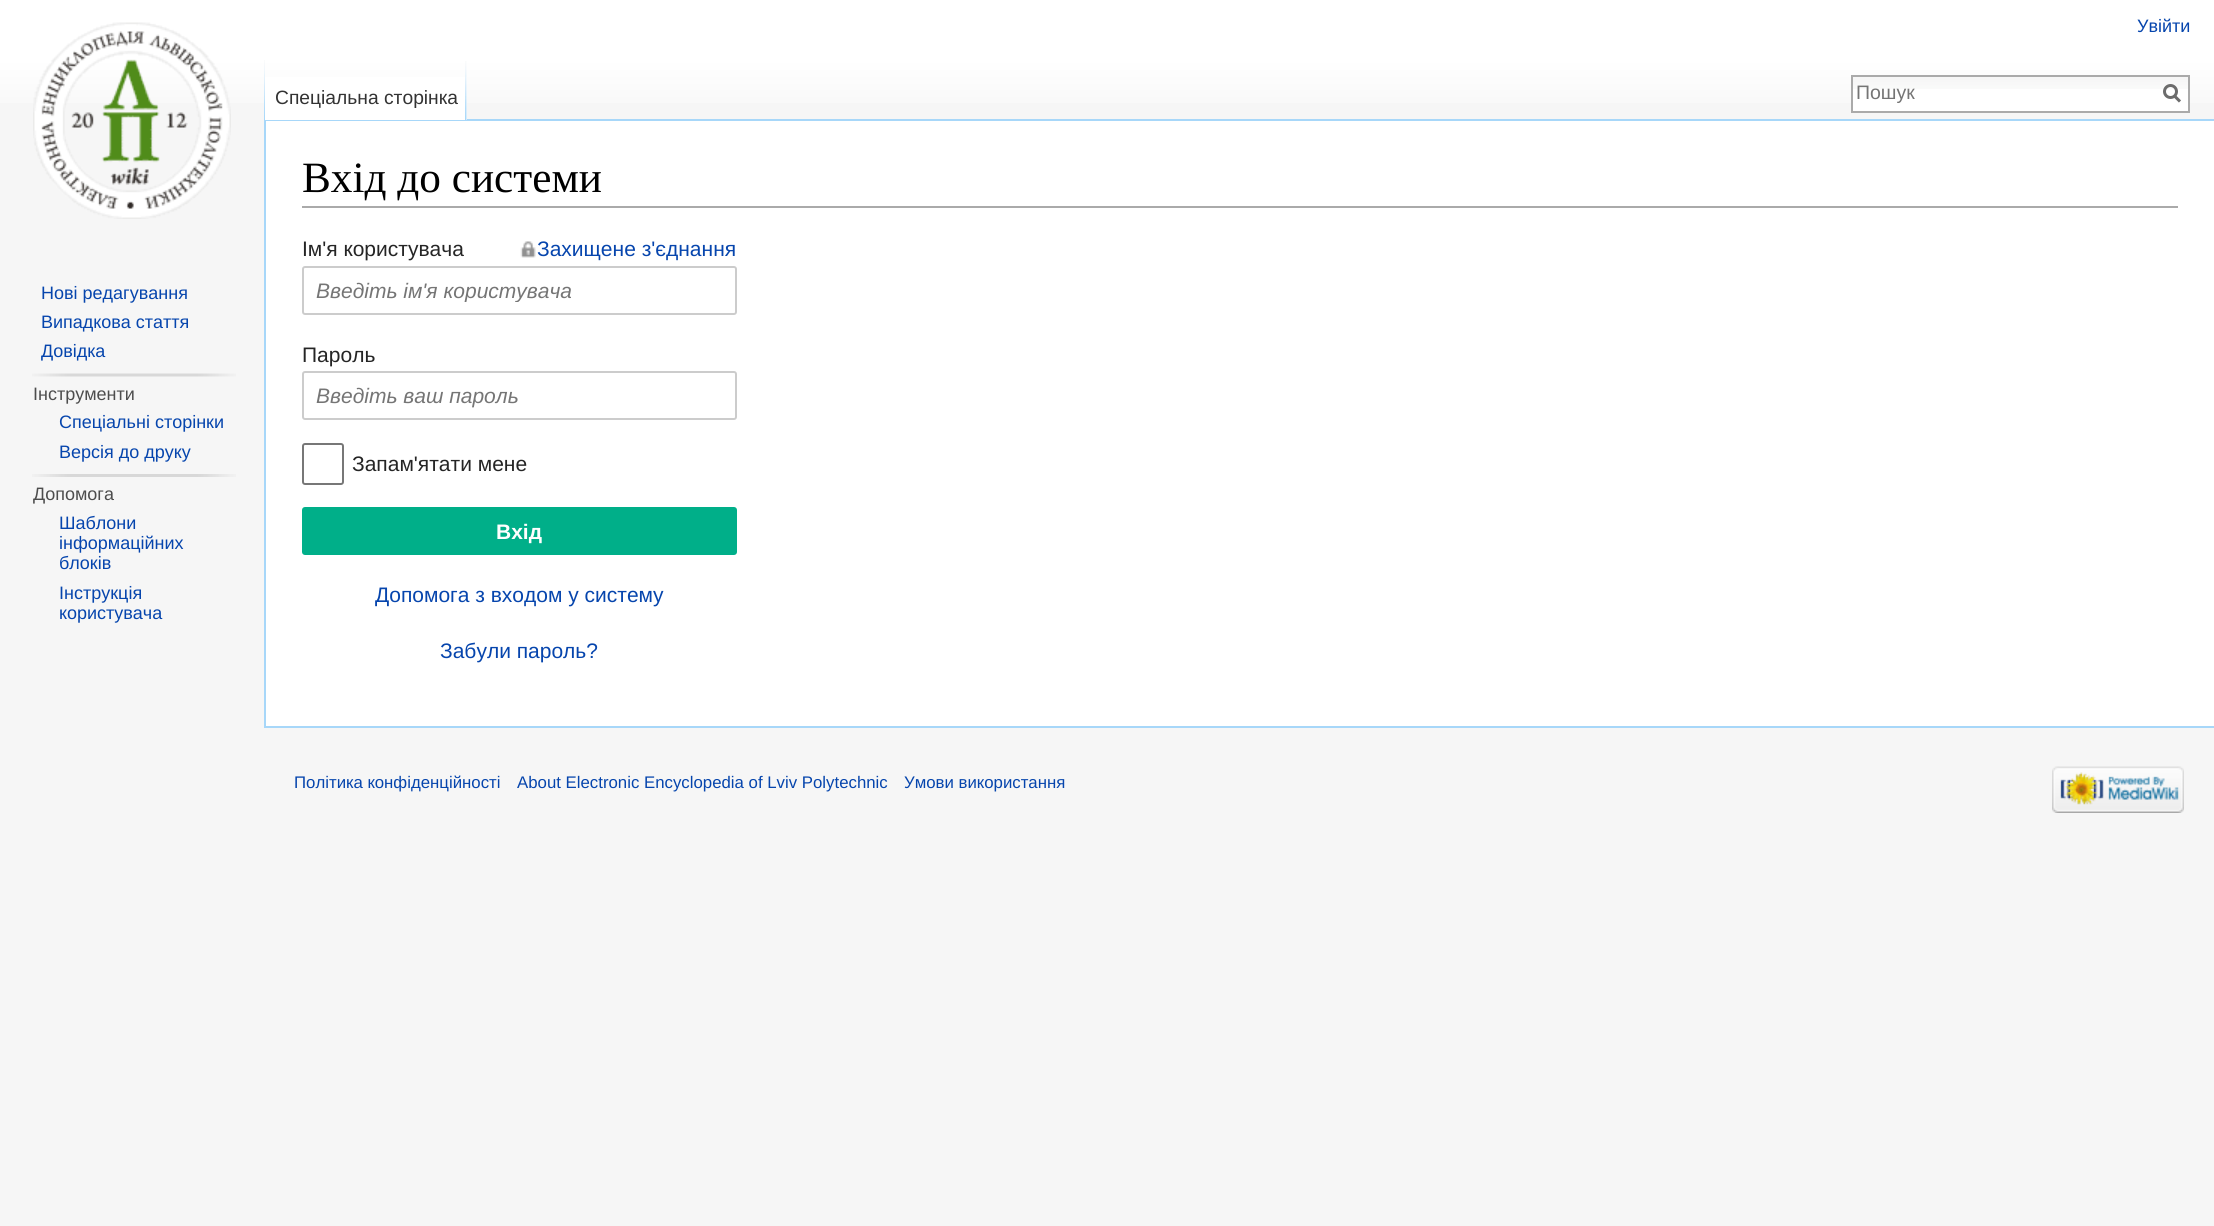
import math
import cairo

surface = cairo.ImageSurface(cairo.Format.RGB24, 2214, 1226)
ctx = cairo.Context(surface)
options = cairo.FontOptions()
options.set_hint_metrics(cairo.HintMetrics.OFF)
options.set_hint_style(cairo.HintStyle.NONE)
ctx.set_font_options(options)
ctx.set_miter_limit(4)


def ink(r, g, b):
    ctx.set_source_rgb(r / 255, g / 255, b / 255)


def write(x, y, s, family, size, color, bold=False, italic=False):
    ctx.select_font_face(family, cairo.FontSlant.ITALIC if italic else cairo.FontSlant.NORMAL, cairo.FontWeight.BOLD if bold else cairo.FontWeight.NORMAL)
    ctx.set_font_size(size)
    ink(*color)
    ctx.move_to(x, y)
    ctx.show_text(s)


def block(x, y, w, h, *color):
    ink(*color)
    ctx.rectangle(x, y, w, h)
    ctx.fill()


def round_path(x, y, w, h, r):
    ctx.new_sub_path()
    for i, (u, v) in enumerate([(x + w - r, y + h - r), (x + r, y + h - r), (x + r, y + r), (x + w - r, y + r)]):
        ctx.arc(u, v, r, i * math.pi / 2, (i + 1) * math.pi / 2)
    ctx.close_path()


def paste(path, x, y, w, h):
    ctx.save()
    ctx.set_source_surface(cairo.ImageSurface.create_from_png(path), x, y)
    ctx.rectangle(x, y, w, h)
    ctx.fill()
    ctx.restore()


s1 = dict(family="Liberation Sans", size=18, color=(6, 69, 173))
s2 = dict(family="Liberation Sans", size=19.25, color=(51, 51, 51))
s3 = dict(family="Liberation Sans", size=19.5, color=(117, 117, 117))
s4 = dict(family="Liberation Sans", size=18, color=(77, 77, 77))
s5 = dict(family="Liberation Serif", size=43.25, color=(0, 0, 0))
s6 = dict(family="Liberation Sans", size=21, color=(37, 37, 37))
s7 = dict(family="Liberation Sans", size=21, color=(6, 69, 173))
s8 = dict(family="Liberation Sans", size=21, color=(117, 117, 117), italic=True)
s9 = dict(family="Liberation Sans", size=21, color=(255, 255, 255), bold=True)
s10 = dict(family="Liberation Sans", size=16.8, color=(6, 69, 173))

ink(246, 246, 246)
ctx.paint()
gradient = cairo.LinearGradient(1107, 0, 1107, 120)
gradient.add_color_stop_rgba(0.5, 1, 1, 1, 1)
gradient.add_color_stop_rgba(1, 0.965, 0.965, 0.965, 1)
ctx.set_source(gradient)
ctx.rectangle(0, 0, 2214, 103)
ctx.fill()
write(2137, 32, "Увійти", **s1)
paste("pic1.png", 264, 60, 1, 59)
block(264, 119, 1950, 2, 167, 215, 249)
block(264, 726, 1950, 2, 167, 215, 249)
block(264, 119, 2, 609, 167, 215, 249)
block(265, 77, 202, 43, 255, 255, 255)
paste("pic2.png", 465, 61, 2, 59)
write(275, 104, "Спеціальна сторінка", **s2)
block(1853, 89, 335, 22, 255, 255, 255)
paste("pic3.png", 1853, 77, 335, 12)
ctx.rectangle(1852, 76, 337, 36)
ink(170, 170, 170)
ctx.stroke()
write(1856, 99, "Пошук", **s3)
ctx.new_path()
ctx.move_to(2180, 101.5)
ctx.line_to(2174, 95.5)
ink(108, 108, 108)
ctx.set_line_width(3)
ctx.stroke()
ctx.arc(2170.5, 91.5, 6, 0, 2 * math.pi)
ctx.stroke()
paste("pic4.png", 33, 22, 198, 197)
write(41, 299, "Нові редагування", **s1)
write(41, 328, "Випадкова стаття", **s1)
write(41, 357, "Довідка", **s1)
paste("pic5.png", 32, 373, 204, 4)
write(33, 400, "Інструменти", **s4)
write(59, 428, "Спеціальні сторінки", **s1)
write(59, 458, "Версія до друку", **s1)
paste("pic6.png", 32, 474, 204, 3)
write(33, 500, "Допомога", **s4)
write(59, 529, "Шаблони", **s1)
write(59, 549, "інформаційних", **s1)
write(59, 569, "блоків", **s1)
write(59, 599, "Інструкція", **s1)
write(59, 619, "користувача", **s1)
block(266, 121, 1948, 605, 255, 255, 255)
block(302, 206, 1876, 2, 170, 170, 170)
write(302, 192, "Вхід до системи", **s5)
write(302, 256, "Ім'я користувача", **s6)
paste("pic7.png", 520, 241, 16, 17)
write(537, 256, "Захищене з'єднання", **s7)
round_path(303, 267, 433, 47, 2)
ink(204, 204, 204)
ctx.set_line_width(2)
ctx.stroke()
ctx.save()
ctx.rectangle(315, 278, 414, 24)
ctx.clip()
write(316, 298, "Введіть ім'я користувача", **s8)
ctx.restore()
write(302, 362, "Пароль", **s6)
round_path(303, 372, 433, 47, 2)
ink(204, 204, 204)
ctx.stroke()
write(316, 403, "Введіть ваш пароль", **s8)
round_path(303, 444, 40, 40, 2)
ink(119, 119, 119)
ctx.stroke()
write(352, 471, "Запам'ятати мене", **s6)
ink(0, 175, 137)
round_path(303, 508, 433, 46, 2)
ctx.fill_preserve()
ctx.stroke()
write(496, 539, "Вхід", **s9)
write(375, 602, "Допомога з входом у систему", **s7)
write(440, 658, "Забули пароль?", **s7)
write(294, 788, "Політика конфіденційності", **s10)
write(517, 788, "About Electronic Encyclopedia of Lviv Polytechnic", **s10)
write(904, 788, "Умови використання", **s10)
paste("pic8.png", 2052, 766, 132, 47)
surface.write_to_png("screenshot.png")
